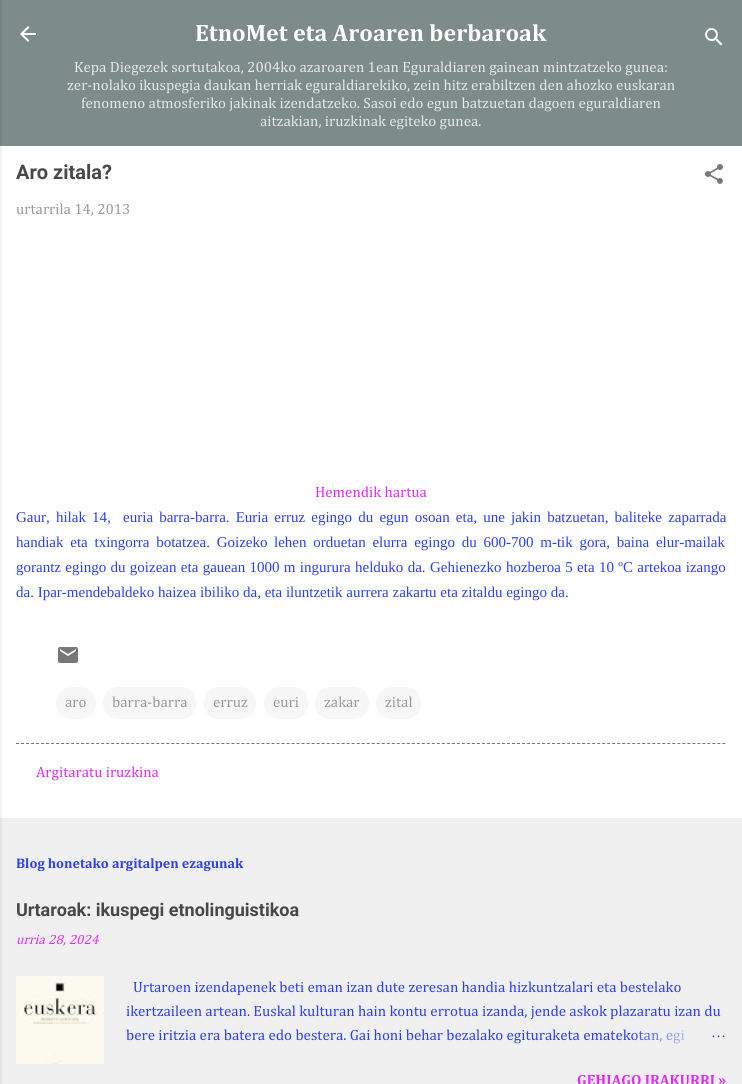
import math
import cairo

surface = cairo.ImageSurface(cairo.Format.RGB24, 742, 1084)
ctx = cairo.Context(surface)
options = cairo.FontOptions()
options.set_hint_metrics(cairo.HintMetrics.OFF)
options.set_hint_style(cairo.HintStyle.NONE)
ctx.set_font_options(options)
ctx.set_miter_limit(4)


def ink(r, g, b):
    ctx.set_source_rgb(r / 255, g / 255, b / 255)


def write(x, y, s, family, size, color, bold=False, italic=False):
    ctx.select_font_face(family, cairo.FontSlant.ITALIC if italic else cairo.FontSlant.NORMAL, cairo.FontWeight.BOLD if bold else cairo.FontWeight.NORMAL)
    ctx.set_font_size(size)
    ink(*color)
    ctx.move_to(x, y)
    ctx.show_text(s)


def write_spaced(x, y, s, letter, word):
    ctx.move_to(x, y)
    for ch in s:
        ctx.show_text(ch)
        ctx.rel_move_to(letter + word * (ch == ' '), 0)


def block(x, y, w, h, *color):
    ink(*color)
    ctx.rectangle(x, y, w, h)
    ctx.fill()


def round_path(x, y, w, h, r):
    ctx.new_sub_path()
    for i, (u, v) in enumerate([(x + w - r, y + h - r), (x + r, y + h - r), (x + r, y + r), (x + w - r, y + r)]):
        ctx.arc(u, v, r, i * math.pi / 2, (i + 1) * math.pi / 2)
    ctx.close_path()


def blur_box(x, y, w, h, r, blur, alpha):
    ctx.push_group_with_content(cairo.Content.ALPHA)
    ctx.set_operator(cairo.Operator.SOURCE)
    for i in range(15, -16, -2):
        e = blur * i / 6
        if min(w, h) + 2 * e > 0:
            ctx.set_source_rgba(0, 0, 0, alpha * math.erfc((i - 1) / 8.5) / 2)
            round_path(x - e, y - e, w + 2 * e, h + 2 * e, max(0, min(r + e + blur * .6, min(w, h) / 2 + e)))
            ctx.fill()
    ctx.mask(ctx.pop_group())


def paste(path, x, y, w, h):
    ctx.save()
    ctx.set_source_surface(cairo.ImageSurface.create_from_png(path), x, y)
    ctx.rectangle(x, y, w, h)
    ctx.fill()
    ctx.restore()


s1 = dict(family="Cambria", size=24, color=(255, 255, 255), bold=True)
s2 = dict(family="Cambria", size=15, color=(229, 232, 231))
s3 = dict(family="Roboto", size=20, color=(72, 72, 72), bold=True)
s4 = dict(family="Cambria", size=15, color=(155, 155, 155))
s5 = dict(family="Cambria", size=15, color=(224, 44, 244))
s6 = dict(family="Liberation Serif", size=15, color=(44, 64, 244))
s7 = dict(family="Cambria", size=14, color=(44, 64, 244), bold=True)
s8 = dict(family="Roboto", size=18, color=(72, 72, 72), bold=True)
s9 = dict(family="Cambria", size=13.5, color=(224, 44, 244), italic=True)
s10 = dict(family="Cambria", size=15, color=(44, 64, 244))
s11 = dict(family="Cambria", size=15, color=(224, 44, 244), bold=True)

ink(240, 240, 240)
ctx.paint()
block(0, 0, 742, 146, 125, 139, 137)
block(0, 146, 742, 672, 255, 255, 255)
ink(0, 0, 0)
blur_box(-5, 1, 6, 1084, 0, 1.5, 0.1)
paste("pic1.png", 20, 26, 16, 16)
write(195, 41, "EtnoMet eta Aroaren berbaroak", **s1)
write(74, 72, "Kepa Diegezek sortutakoa, 2004ko azaroaren 1ean Eguraldiaren gainean mintzatzeko gunea:", **s2)
write(67, 90, "zer-nolako ikuspegia daukan herriak eguraldiarekiko, zein hitz erabiltzen den ahozko euskaran", **s2)
write(81, 108, "fenomeno atmosferiko jakinak izendatzeko. Sasoi edo egun batzuetan dagoen eguraldiaren", **s2)
write(260, 126, "aitzakian, iruzkinak egiteko gunea.", **s2)
paste("pic2.png", 705, 28, 18, 18)
write(16, 179, "Aro zitala?", **s3)
paste("pic3.png", 705, 164, 18, 20)
write(16, 214, "urtarrila 14, 2013", **s4)
write(315, 497, "Hemendik hartua", **s5)
ctx.select_font_face("Liberation Serif")
ink(44, 64, 244)
write_spaced(16, 522, "Gaur, hilak 14,  euria barra-barra. Euria erruz egingo du egun osoan eta, une jakin batzuetan, baliteke zaparrada", 0, 2.4)
write_spaced(16, 547, "handiak eta txingorra botatzea. Goizeko", 0, 3)
write_spaced(274, 547, "lehen orduetan elurra egingo du 600-700 m-tik gora, baina elur-mailak", 0, 3)
write_spaced(16, 572, "gorantz egingo du goizean eta gauean 1000 m ingurura helduko da. Gehienezko hozberoa 5 eta 10 ºC artekoa izango", 0, 0.6)
write(16, 597, "da. Ipar-mendebaldeko haizea ibiliko da, eta iluntzetik aurrera zakartu eta zitaldu egingo da.", **s6)
paste("pic4.png", 58, 647, 20, 16)
ink(247, 247, 247)
round_path(56, 687, 40, 32, 15)
ctx.fill()
write(65, 707, "aro", **s4)
ink(247, 247, 247)
round_path(103, 687, 93, 32, 15)
ctx.fill()
write(112, 707, "barra-barra", **s4)
ink(247, 247, 247)
round_path(204, 687, 52, 32, 15)
ctx.fill()
write(213, 707, "erruz", **s4)
ink(247, 247, 247)
round_path(264, 687, 44, 32, 15)
ctx.fill()
write(273, 707, "euri", **s4)
ink(247, 247, 247)
round_path(315, 687, 54, 32, 15)
ctx.fill()
write(324, 707, "zakar", **s4)
ink(247, 247, 247)
round_path(376, 687, 45, 32, 15)
ctx.fill()
write(385, 707, "zital", **s4)
ctx.new_path()
ctx.move_to(16, 743.5)
ctx.line_to(726, 743.5)
ink(117, 117, 117)
ctx.set_line_width(1)
ctx.set_dash([3, 2.01])
ctx.stroke()
write(36, 777, "Argitaratu iruzkina", **s5)
write(16, 868, "Blog honetako argitalpen ezagunak", **s7)
write(16, 916, "Urtaroak: ikuspegi etnolinguistikoa", **s8)
write(16, 944, "urria 28, 2024", **s9)
paste("pic5.png", 16, 976, 88, 88)
write(133, 992, "Urtaroen izendapenek beti eman izan dute zeresan handia hizkuntzalari eta bestelako", **s10)
write(126, 1016, "ikertzaileen artean. Euskal kulturan hain kontu errotua izanda, jende askok plazaratu izan du", **s10)
write(126, 1040, "bere iritzia era batera edo bestera. Gai honi behar bezalako egituraketa ematekotan, egi", **s10)
gradient = cairo.LinearGradient(726, 1036, 630, 1036)
gradient.add_color_stop_rgba(0, 0.941, 0.941, 0.941, 1)
gradient.add_color_stop_rgba(0.2, 0.941, 0.941, 0.941, 1)
gradient.add_color_stop_rgba(1, 0.941, 0.941, 0.941, 0)
ctx.set_source(gradient)
ctx.rectangle(632, 1030, 53, 14)
ctx.fill()
write(711, 1037, "…", **s6)
write(577, 1085, "GEHIAGO IRAKURRI »", **s11)
surface.write_to_png("screenshot.png")
